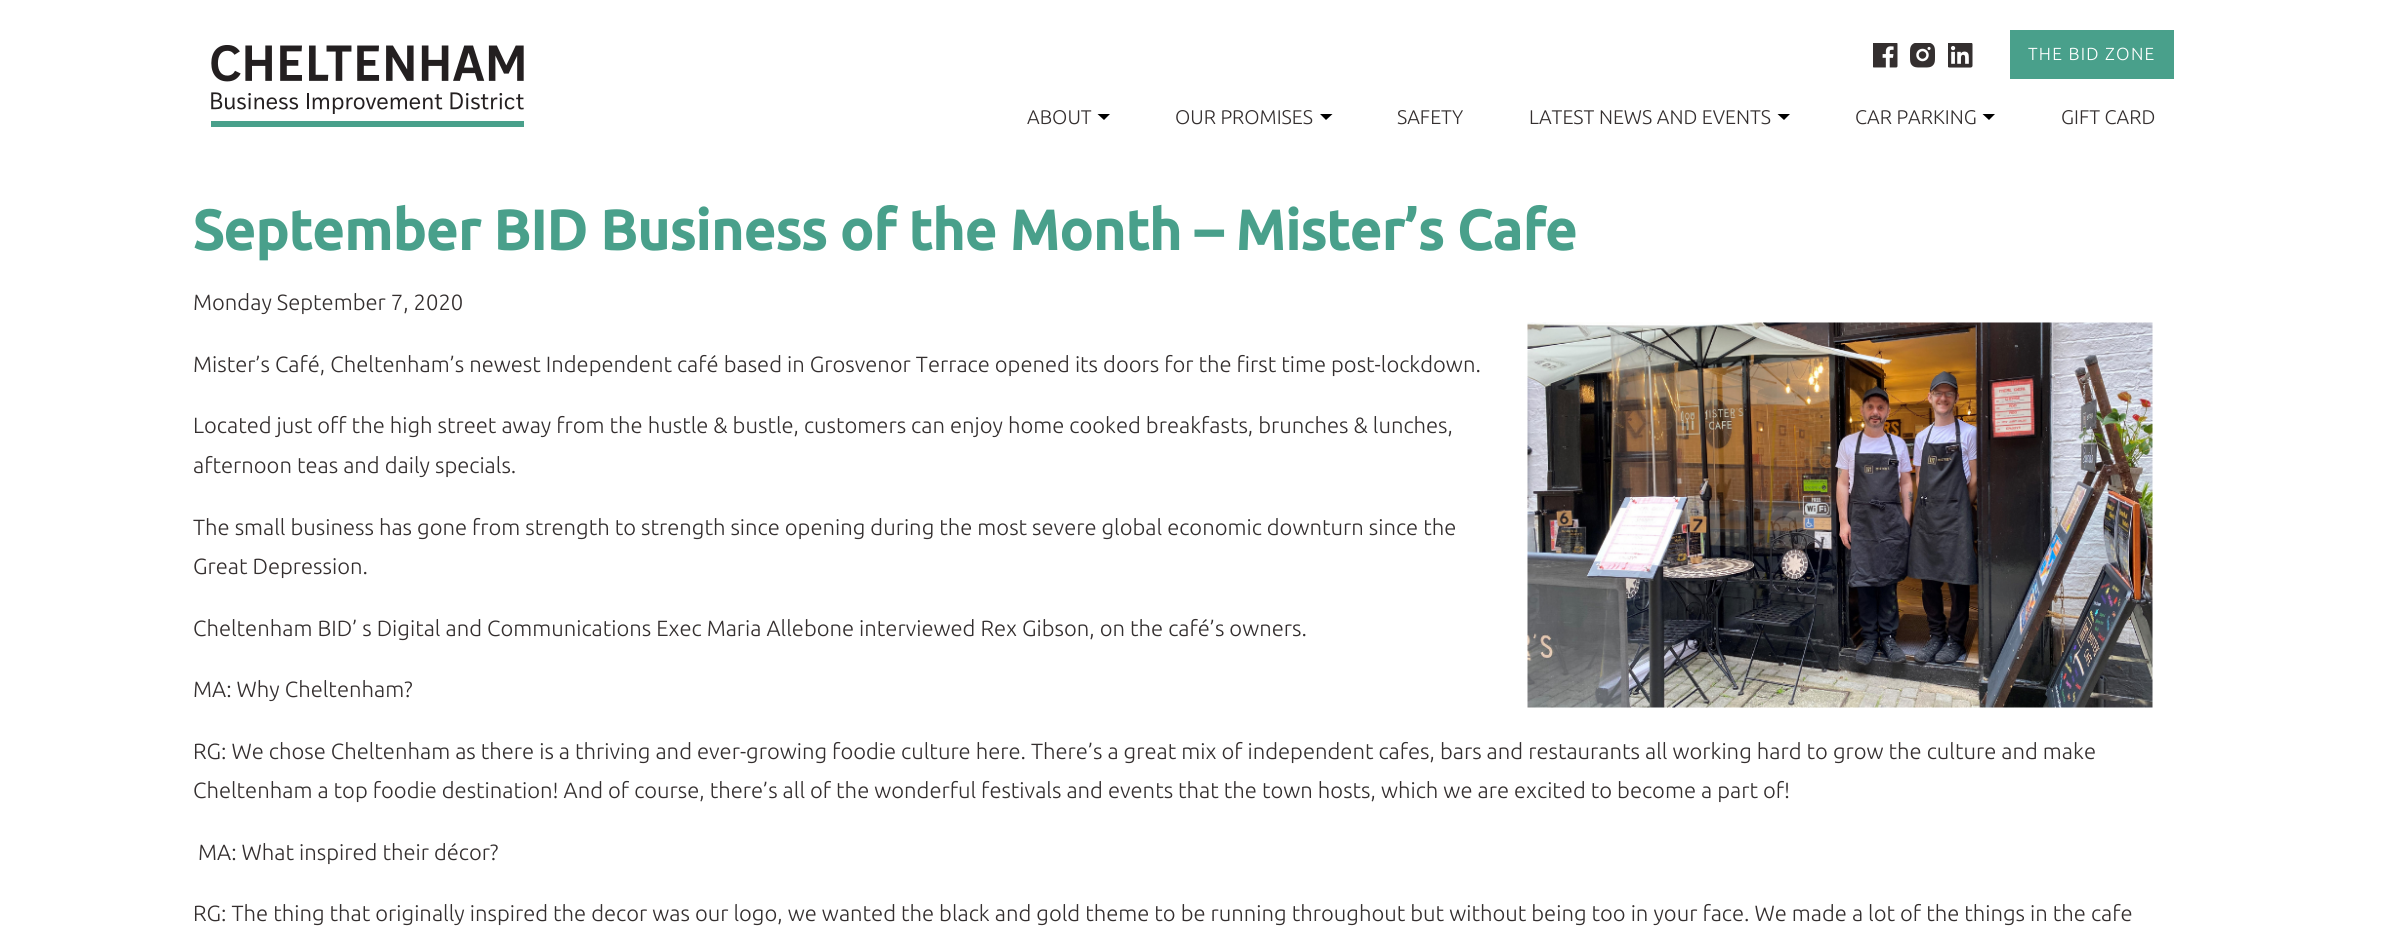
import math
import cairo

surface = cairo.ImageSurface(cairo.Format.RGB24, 2385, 930)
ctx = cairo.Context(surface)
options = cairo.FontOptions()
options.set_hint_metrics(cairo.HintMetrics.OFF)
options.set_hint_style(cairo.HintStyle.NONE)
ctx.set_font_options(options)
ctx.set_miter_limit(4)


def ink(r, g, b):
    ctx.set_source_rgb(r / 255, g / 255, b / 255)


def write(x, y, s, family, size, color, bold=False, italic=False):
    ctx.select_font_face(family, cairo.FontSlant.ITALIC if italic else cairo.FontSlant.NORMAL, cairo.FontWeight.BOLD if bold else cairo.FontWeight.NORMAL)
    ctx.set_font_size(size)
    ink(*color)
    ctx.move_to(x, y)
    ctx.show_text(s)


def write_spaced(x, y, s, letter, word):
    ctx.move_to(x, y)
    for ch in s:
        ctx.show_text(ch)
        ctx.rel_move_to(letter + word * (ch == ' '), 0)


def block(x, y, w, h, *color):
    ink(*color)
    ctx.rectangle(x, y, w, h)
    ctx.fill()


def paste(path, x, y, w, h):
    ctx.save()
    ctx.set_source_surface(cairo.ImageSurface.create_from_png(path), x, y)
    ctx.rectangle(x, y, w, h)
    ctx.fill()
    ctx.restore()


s1 = dict(family="Ubuntu Light", size=19.75, color=(52, 47, 47))
s2 = dict(family="Ubuntu", size=56, color=(73, 160, 139), bold=True)
s3 = dict(family="Ubuntu Light", size=22, color=(52, 47, 47))

ink(255, 255, 255)
ctx.paint()
paste("pic1.png", 211, 45, 313, 82)
paste("pic2.png", 1873, 43, 25, 25)
paste("pic3.png", 1910, 43, 25, 25)
paste("pic4.png", 1948, 43, 25, 25)
block(2010, 30, 164, 49, 73, 160, 139)
ctx.select_font_face("Ubuntu Light")
ctx.set_font_size(17.5)
ink(255, 255, 255)
write_spaced(2028, 60, "THE BID ZONE", 1.25, 0)
write(1027, 124, "ABOUT", **s1)
ink(0, 0, 0)
ctx.new_path()
ctx.move_to(1097.5, 114)
ctx.line_to(1110, 114)
ctx.line_to(1104, 120)
ctx.close_path()
ctx.fill()
write(1175, 124, "OUR PROMISES", **s1)
ink(0, 0, 0)
ctx.new_path()
ctx.move_to(1320, 114)
ctx.line_to(1332.5, 114)
ctx.line_to(1326, 120)
ctx.close_path()
ctx.fill()
write(1397, 124, "SAFETY", **s1)
write(1529, 124, "LATEST NEWS AND EVENTS", **s1)
ink(0, 0, 0)
ctx.new_path()
ctx.move_to(1777.5, 114)
ctx.line_to(1790, 114)
ctx.line_to(1784, 120)
ctx.close_path()
ctx.fill()
write(1855, 124, "CAR PARKING", **s1)
ink(0, 0, 0)
ctx.new_path()
ctx.move_to(1982.5, 114)
ctx.line_to(1995, 114)
ctx.line_to(1989, 120)
ctx.close_path()
ctx.fill()
write(2061, 124, "GIFT CARD", **s1)
write(193, 250, "September BID Business of the Month – Mister’s Cafe", **s2)
write(193, 310, "Monday September 7, 2020", **s3)
write(193, 372, "Mister’s Café, Cheltenham’s newest Independent café based in Grosvenor Terrace opened its doors for the first time post-lockdown.", **s3)
paste("pic5.png", 1527, 322, 626, 386)
write(193, 433, "Located just off the high street away from the hustle & bustle, customers can enjoy home cooked breakfasts, brunches & lunches,", **s3)
write(193, 473, "afternoon teas and daily specials.", **s3)
write(193, 535, "The small business has gone from strength to strength since opening during the most severe global economic downturn since the", **s3)
write(193, 574, "Great Depression.", **s3)
write(193, 636, "Cheltenham BID’ s Digital and Communications Exec Maria Allebone interviewed Rex Gibson, on the café’s owners.", **s3)
write(193, 697, "MA: Why Cheltenham?", **s3)
write(193, 759, "RG: We chose Cheltenham as there is a thriving and ever-growing foodie culture here. There’s a great mix of independent cafes, bars and restaurants all working hard to grow the culture and make", **s3)
write(193, 798, "Cheltenham a top foodie destination! And of course, there’s all of the wonderful festivals and events that the town hosts, which we are excited to become a part of!", **s3)
write(198, 860, "MA: What inspired their décor?", **s3)
write(193, 921, "RG: The thing that originally inspired the decor was our logo, we wanted the black and gold theme to be running throughout but without being too in your face. We made a lot of the things in the cafe", **s3)
surface.write_to_png("screenshot.png")
